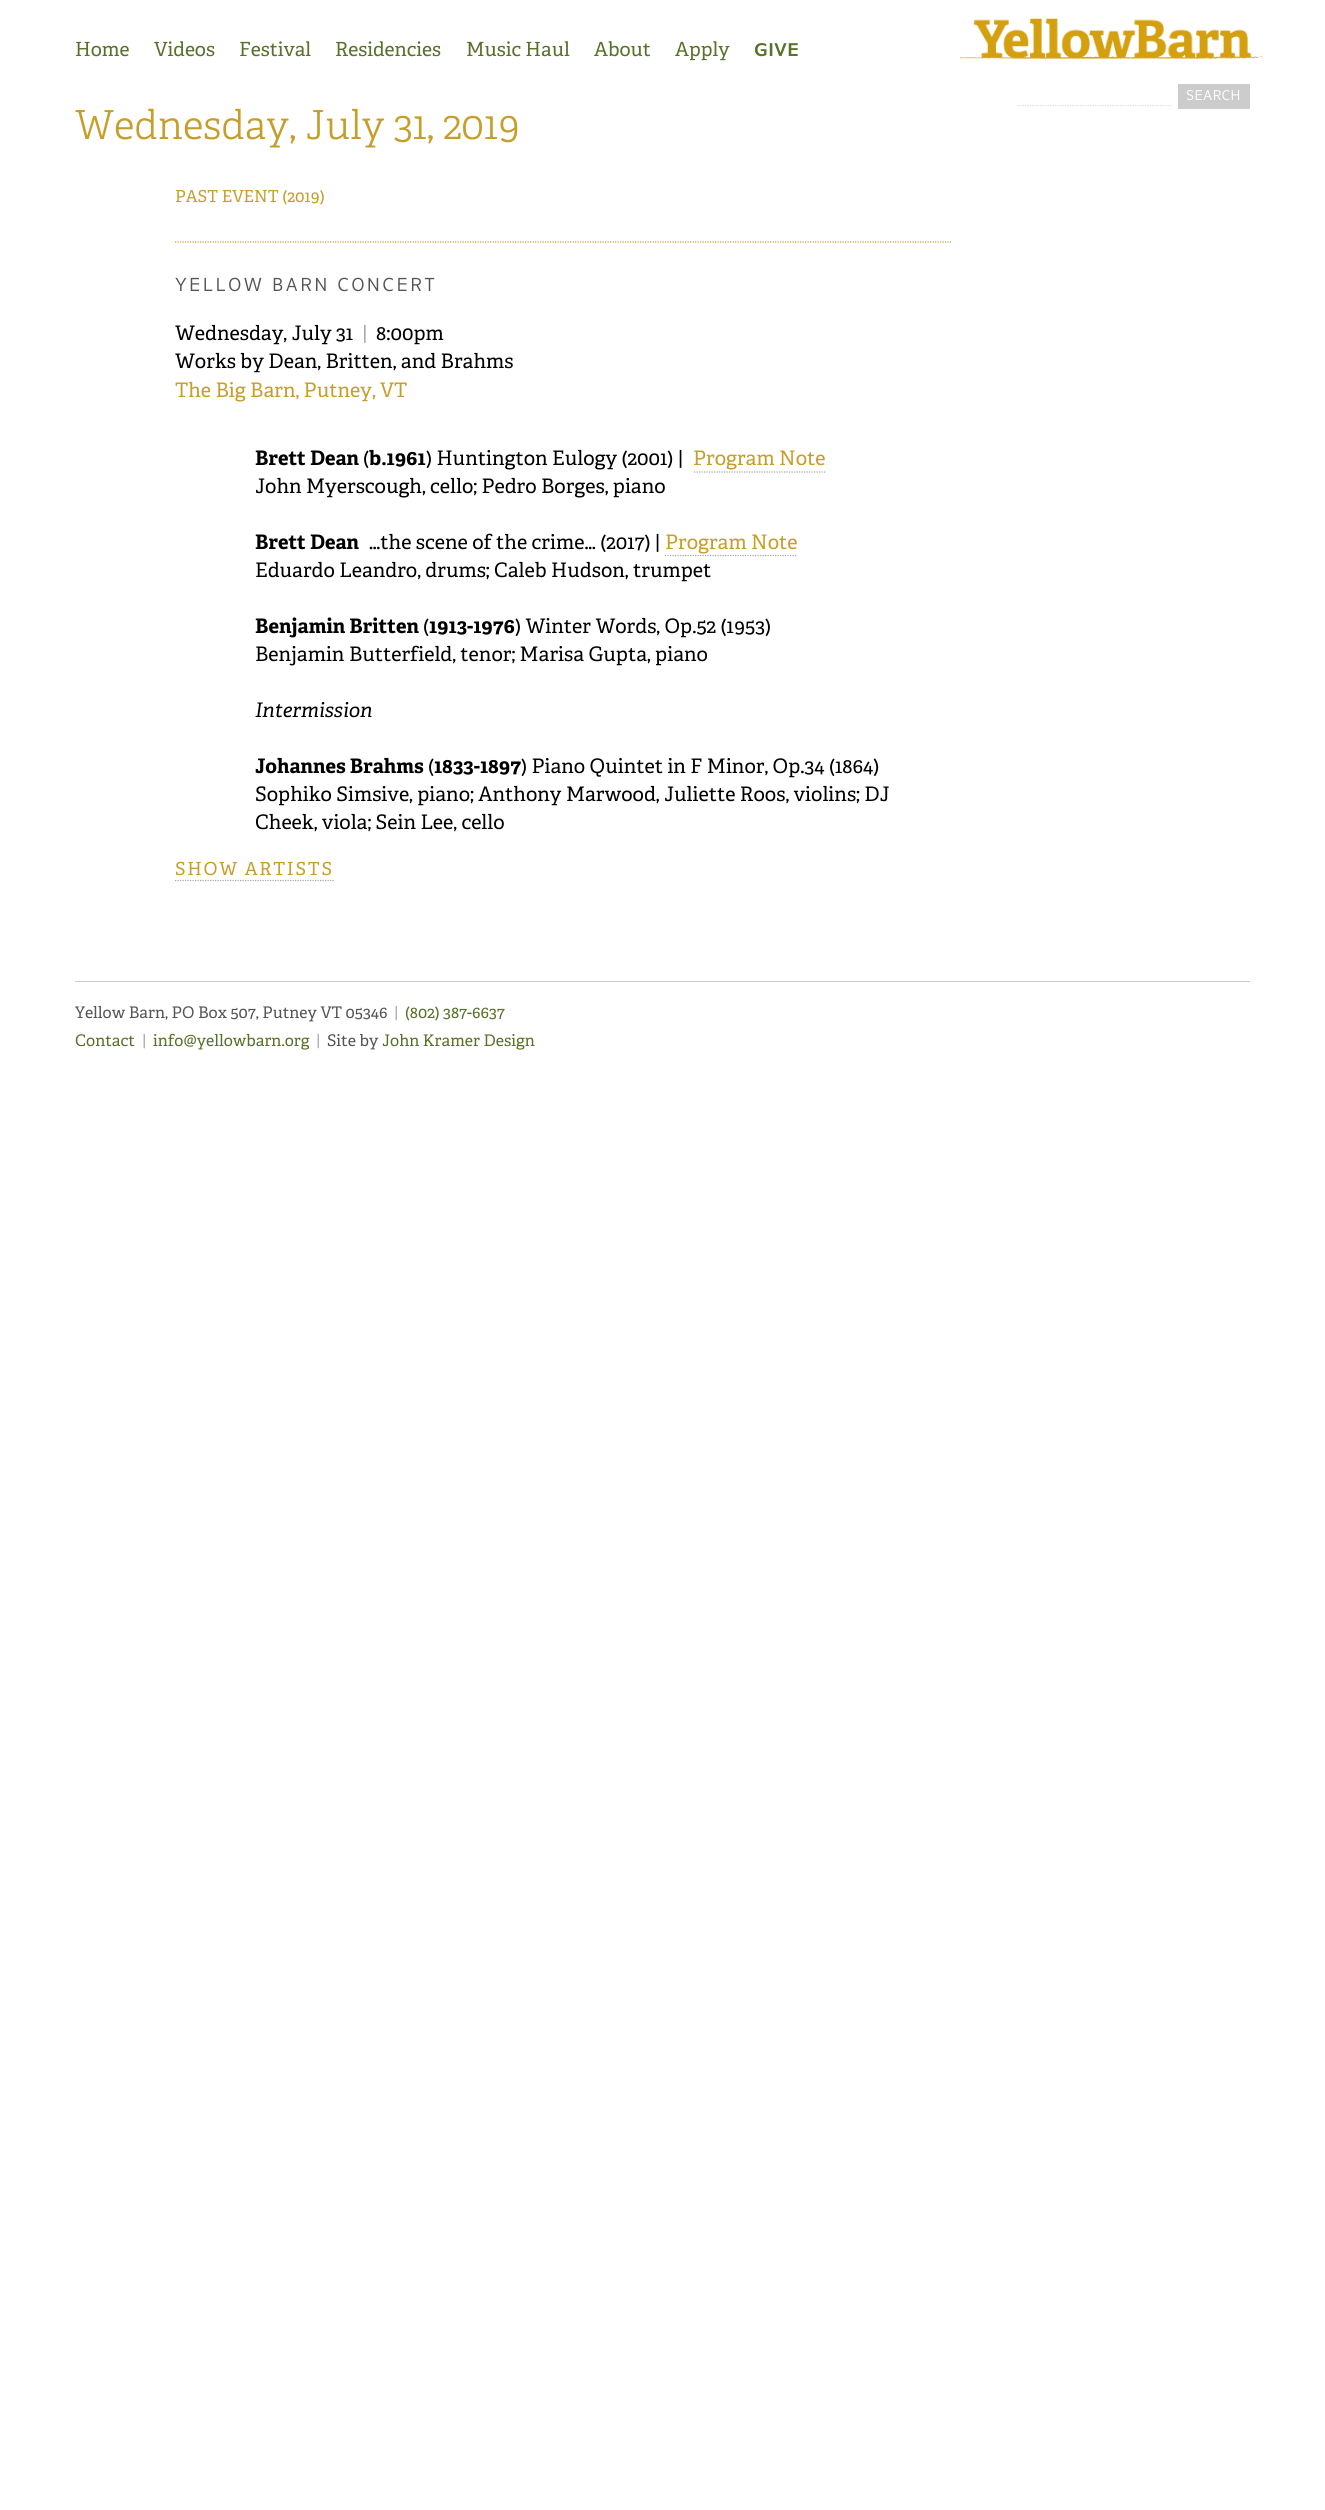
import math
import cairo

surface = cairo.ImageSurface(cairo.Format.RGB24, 1325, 2510)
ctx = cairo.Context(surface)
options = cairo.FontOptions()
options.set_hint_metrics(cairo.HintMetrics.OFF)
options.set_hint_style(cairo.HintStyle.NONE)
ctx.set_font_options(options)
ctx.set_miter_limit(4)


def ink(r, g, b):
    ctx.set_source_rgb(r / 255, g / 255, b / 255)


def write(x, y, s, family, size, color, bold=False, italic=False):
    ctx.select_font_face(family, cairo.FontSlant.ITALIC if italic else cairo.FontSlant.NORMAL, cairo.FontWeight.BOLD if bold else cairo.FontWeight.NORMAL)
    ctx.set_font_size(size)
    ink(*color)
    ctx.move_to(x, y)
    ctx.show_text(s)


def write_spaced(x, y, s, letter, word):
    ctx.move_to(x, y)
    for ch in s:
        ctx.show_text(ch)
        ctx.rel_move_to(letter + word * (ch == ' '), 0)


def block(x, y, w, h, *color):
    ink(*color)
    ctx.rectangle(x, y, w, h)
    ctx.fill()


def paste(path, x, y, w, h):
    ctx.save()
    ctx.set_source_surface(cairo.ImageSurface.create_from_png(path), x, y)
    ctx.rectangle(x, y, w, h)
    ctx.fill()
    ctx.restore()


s1 = dict(family="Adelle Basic", size=19.5, color=(89, 113, 42))
s2 = dict(family="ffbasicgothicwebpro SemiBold", size=19.5, color=(89, 113, 42))
s3 = dict(family="ffbasicgothicwebpro", size=15, color=(255, 255, 255))
s4 = dict(family="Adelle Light", size=40, color=(198, 158, 42))
s5 = dict(family="Adelle Basic", size=16.5, color=(198, 158, 42))
s6 = dict(family="Adelle Basic", size=20, color=(0, 0, 0))
s7 = dict(family="Adelle Basic", size=20, color=(170, 170, 170))
s8 = dict(family="Adelle Basic", size=20, color=(198, 158, 42))
s9 = dict(family="Adelle Basic", size=20, color=(0, 0, 0), bold=True)
s10 = dict(family="Adelle Basic", size=20, color=(0, 0, 0), italic=True)
s11 = dict(family="Adelle Basic", size=16, color=(85, 85, 85))
s12 = dict(family="Adelle Basic", size=16, color=(170, 170, 170))
s13 = dict(family="Adelle Basic", size=16, color=(89, 113, 42))

ink(255, 255, 255)
ctx.paint()
paste("pic1.png", 960, 18, 303, 41)
write(75, 56, "Home", **s1)
write(154, 56, "Videos", **s1)
write(239, 56, "Festival", **s1)
write(335, 56, "Residencies", **s1)
write(466, 56, "Music Haul", **s1)
write(594, 56, "About", **s1)
write(675, 56, "Apply", **s1)
write(754, 56, "GIVE", **s2)
block(1178, 84, 72, 25, 204, 204, 204)
write(1186, 100, "SEARCH", **s3)
ctx.new_path()
ctx.move_to(1017.5, 105.5)
ctx.line_to(1172.5, 105.5)
ink(221, 221, 221)
ctx.set_line_width(1.2)
ctx.set_dash([1.25, 1.25])
ctx.stroke()
write(75, 139, "Wednesday, July 31, 2019", **s4)
write(175, 202, "PAST EVENT (2019)", **s5)
ctx.new_path()
ctx.move_to(175, 242)
ctx.line_to(951, 242)
ctx.stroke()
ctx.select_font_face("ffbasicgothicwebpro")
ctx.set_font_size(20)
ink(85, 85, 85)
write_spaced(175, 291, "YELLOW BARN CONCERT", 2, 0)
write(175, 340, "Wednesday, July 31", **s6)
write(362, 340, "|", **s7)
write(376, 340, "8:00pm", **s6)
write(175, 368, "Works by Dean, Britten, and Brahms", **s6)
write(175, 397, "The Big Barn, Putney, VT", **s8)
write(255, 465, "Brett Dean", **s9)
write(363, 465, "(", **s6)
write(369, 465, "b.1961", **s9)
write(426, 465, ") Huntington Eulogy (2001) |", **s6)
write(693, 465, "Program Note", **s8)
ctx.new_path()
ctx.move_to(694, 472)
ctx.line_to(826, 472)
ink(167, 167, 167)
ctx.stroke()
write(255, 493, "John Myerscough, cello; Pedro Borges, piano", **s6)
write(255, 549, "Brett Dean", **s9)
write(369, 549, "…the scene of the crime… (2017) |", **s6)
write(665, 549, "Program Note", **s8)
ctx.new_path()
ctx.move_to(665, 555.5)
ctx.line_to(797.5, 555.5)
ink(167, 167, 167)
ctx.stroke()
write(255, 577, "Eduardo Leandro, drums; Caleb Hudson, trumpet", **s6)
write(255, 633, "Benjamin Britten", **s9)
write(423, 633, "(", **s6)
write(429, 633, "1913-1976", **s9)
write(515, 633, ") Winter Words, Op.52 (1953)", **s6)
write(255, 661, "Benjamin Butterfield, tenor; Marisa Gupta, piano", **s6)
write(255, 717, "Intermission", **s10)
write(255, 773, "Johannes Brahms", **s9)
write(428, 773, "(", **s6)
write(434, 773, "1833-1897", **s9)
write(521, 773, ") Piano Quintet in F Minor, Op.34 (1864)", **s6)
write(255, 801, "Sophiko Simsive, piano; Anthony Marwood, Juliette Roos, violins; DJ", **s6)
write(255, 829, "Cheek, viola; Sein Lee, cello", **s6)
ctx.set_font_size(18)
ink(198, 158, 42)
write_spaced(175, 875, "SHOW ARTISTS", 1.75, 0)
ctx.new_path()
ctx.move_to(175, 880.5)
ctx.line_to(334, 880.5)
ink(167, 167, 167)
ctx.stroke()
block(75, 981, 1175, 1, 204, 204, 204)
write(75, 1018, "Yellow Barn, PO Box 507, Putney VT 05346", **s11)
write(394, 1018, "|", **s12)
write(405, 1018, "(802) 387-6637", **s13)
write(75, 1046, "Contact", **s13)
write(142, 1046, "|", **s12)
write(153, 1046, "info@yellowbarn.org", **s13)
write(316, 1046, "|", **s12)
write(327, 1046, "Site by", **s11)
write(382, 1046, "John Kramer Design", **s13)
surface.write_to_png("screenshot.png")
